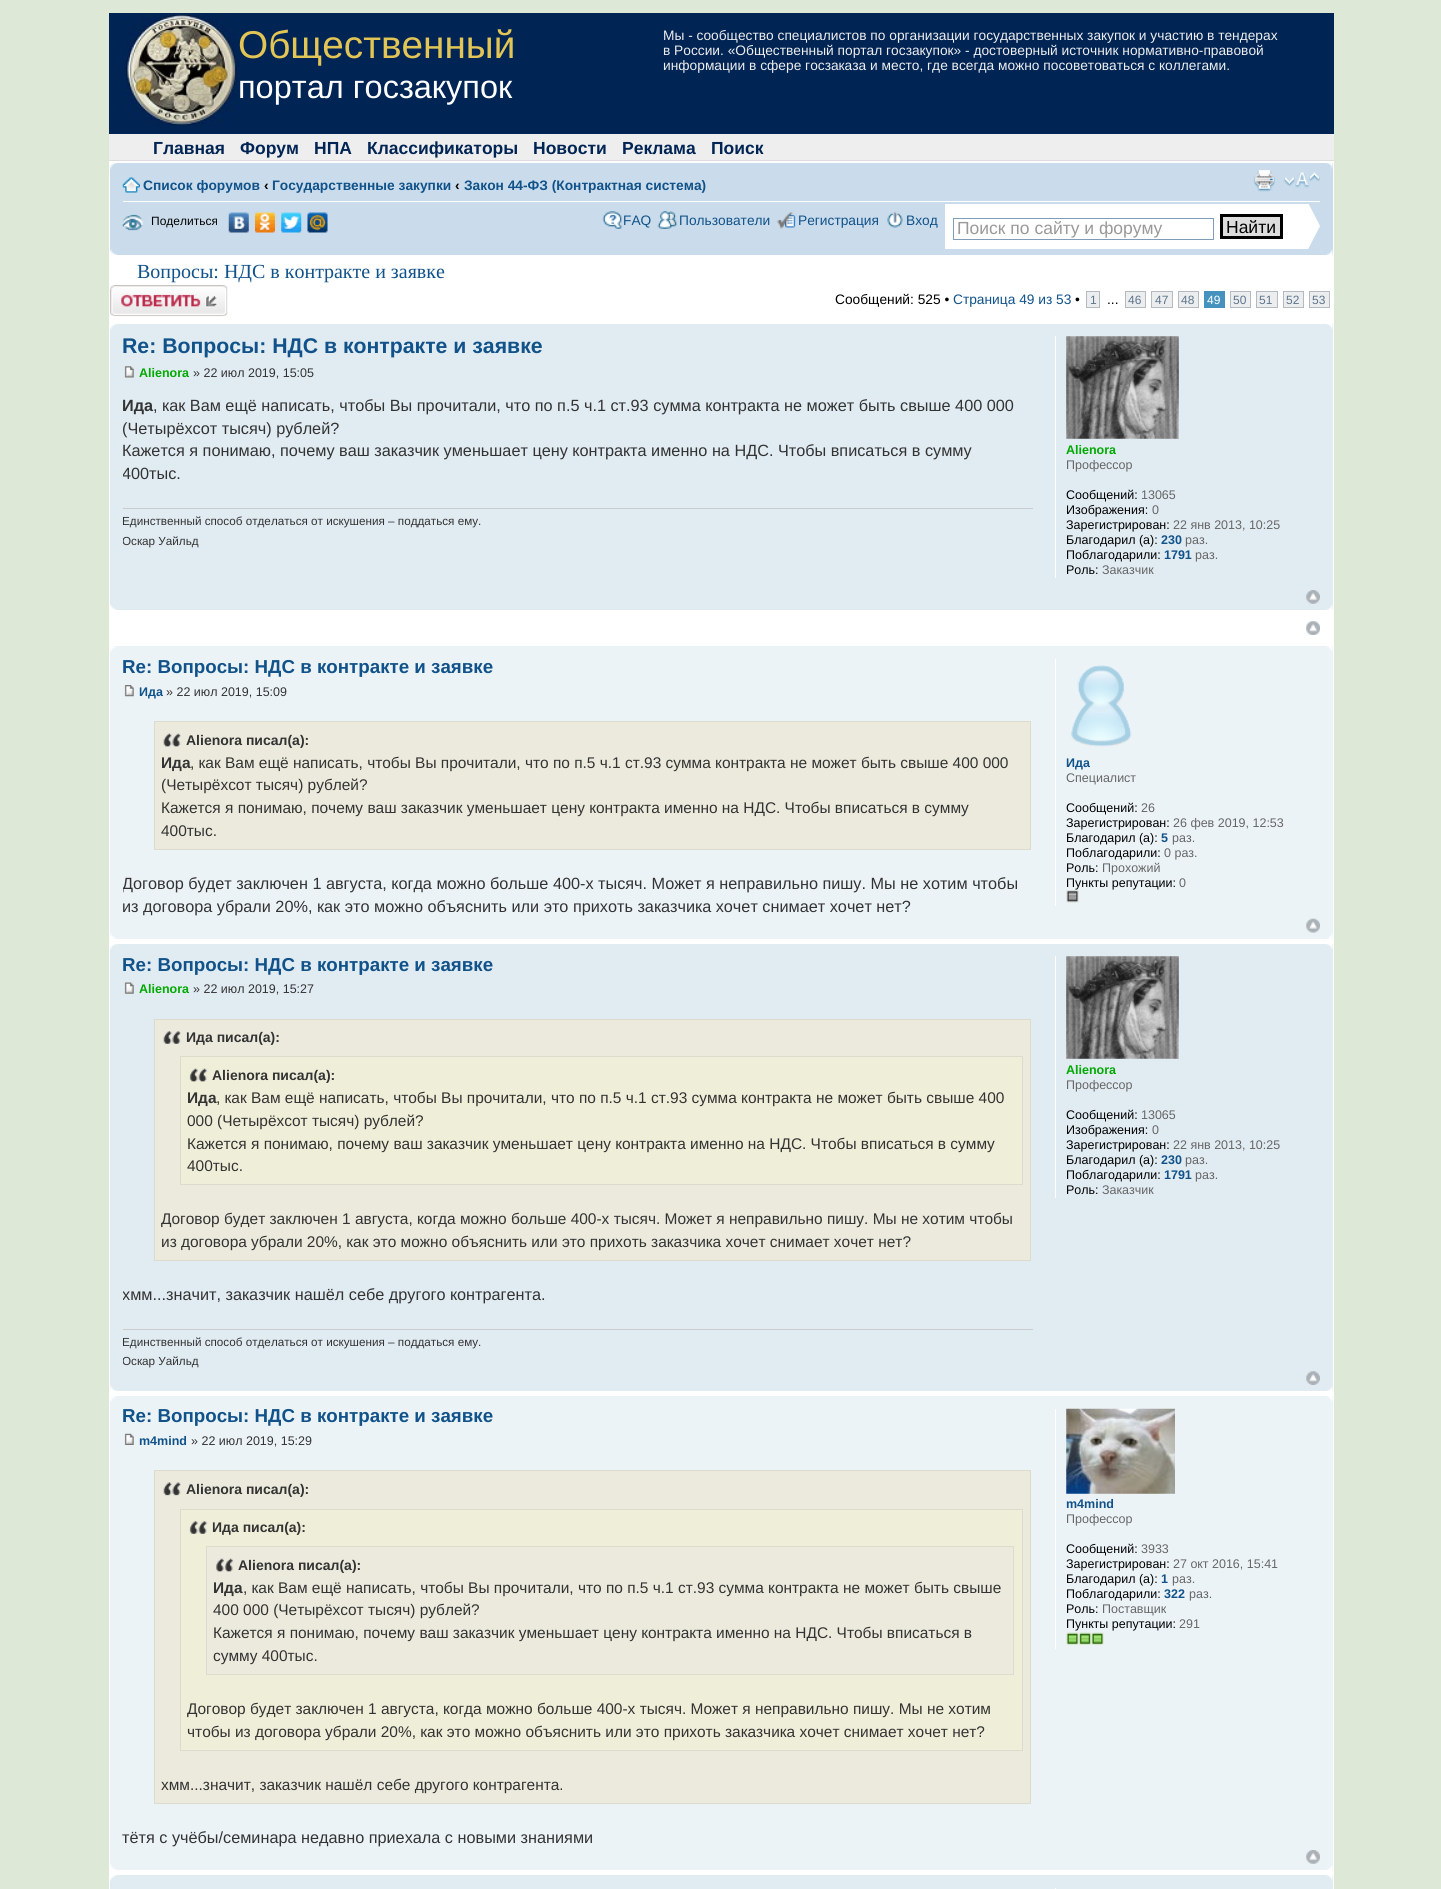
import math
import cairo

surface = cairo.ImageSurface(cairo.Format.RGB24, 1441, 1889)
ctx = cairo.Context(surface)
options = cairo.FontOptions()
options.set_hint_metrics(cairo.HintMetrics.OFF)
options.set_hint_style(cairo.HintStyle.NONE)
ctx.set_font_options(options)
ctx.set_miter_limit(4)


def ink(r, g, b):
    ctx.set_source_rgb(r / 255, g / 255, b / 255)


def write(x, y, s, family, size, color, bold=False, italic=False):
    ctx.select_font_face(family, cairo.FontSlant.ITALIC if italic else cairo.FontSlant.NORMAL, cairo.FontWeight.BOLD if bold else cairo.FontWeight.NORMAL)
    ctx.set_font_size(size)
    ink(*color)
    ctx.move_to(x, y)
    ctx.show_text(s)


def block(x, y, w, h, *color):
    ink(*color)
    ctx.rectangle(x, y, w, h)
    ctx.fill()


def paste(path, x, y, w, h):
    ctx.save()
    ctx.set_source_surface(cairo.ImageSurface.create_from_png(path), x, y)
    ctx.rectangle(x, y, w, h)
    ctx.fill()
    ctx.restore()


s1 = dict(family="Liberation Sans", size=38.75, color=(227, 197, 85))
s2 = dict(family="Liberation Sans", size=32.5, color=(255, 255, 255))
s3 = dict(family="Liberation Sans", size=13.75, color=(238, 238, 238))
s4 = dict(family="Liberation Sans", size=17.5, color=(0, 36, 84), bold=True)
s5 = dict(family="Liberation Sans", size=13.75, color=(16, 82, 137), bold=True)
s6 = dict(family="Liberation Sans", size=13.75, color=(0, 0, 0), bold=True)
s7 = dict(family="Liberation Sans", size=12, color=(0, 0, 0))
s8 = dict(family="Liberation Sans", size=13.75, color=(16, 82, 137))
s9 = dict(family="Liberation Sans", size=17.5, color=(153, 153, 153))
s10 = dict(family="Liberation Sans", size=17.5, color=(0, 0, 0))
s11 = dict(family="Liberation Serif", size=20, color=(16, 82, 137))
s12 = dict(family="Liberation Sans", size=13.75, color=(0, 0, 0))
s13 = dict(family="Liberation Sans", size=12, color=(92, 117, 140))
s14 = dict(family="Liberation Sans", size=12, color=(255, 255, 255))
s15 = dict(family="Liberation Sans", size=21.25, color=(16, 82, 137), bold=True)
s16 = dict(family="Liberation Sans", size=12.5, color=(0, 170, 0), bold=True)
s17 = dict(family="Liberation Sans", size=12.5, color=(51, 51, 51))
s18 = dict(family="Liberation Sans", size=16.25, color=(51, 51, 51), bold=True)
s19 = dict(family="Liberation Sans", size=16.25, color=(51, 51, 51))
s20 = dict(family="Liberation Sans", size=11.7, color=(51, 51, 51))
s21 = dict(family="Liberation Sans", size=12.5, color=(102, 102, 102))
s22 = dict(family="Liberation Sans", size=12.5, color=(0, 0, 0))
s23 = dict(family="Liberation Sans", size=12.5, color=(16, 82, 137), bold=True)
s24 = dict(family="Liberation Sans", size=18.75, color=(16, 82, 137), bold=True)
s25 = dict(family="Liberation Sans", size=14, color=(51, 51, 51), bold=True)
s26 = dict(family="Liberation Sans", size=15.45, color=(51, 51, 51), bold=True)
s27 = dict(family="Liberation Sans", size=15.45, color=(51, 51, 51))

ink(221, 232, 215)
ctx.paint()
block(109, 13, 1225, 121, 0, 36, 84)
paste("pic1.png", 126, 15, 113, 111)
write(238, 58, "Общественный", **s1)
write(238, 98, "портал госзакупок", **s2)
write(663, 40, "Мы - сообщество специалистов по организации государственных закупок и участию в тендерах", **s3)
write(663, 55, "в России. «Общественный портал госзакупок» - достоверный источник нормативно-правовой", **s3)
write(663, 70, "информации в сфере госзаказа и место, где всегда можно посоветоваться с коллегами.", **s3)
block(109, 134, 1225, 26, 238, 238, 238)
block(109, 160, 1225, 1, 221, 221, 221)
write(153, 154, "Главная", **s4)
write(240, 154, "Форум", **s4)
write(314, 154, "НПА", **s4)
write(367, 154, "Классификаторы", **s4)
write(533, 154, "Новости", **s4)
write(622, 154, "Реклама", **s4)
write(711, 154, "Поиск", **s4)
block(109, 161, 1225, 1728, 255, 255, 255)
block(110, 163, 1223, 92, 202, 220, 235)
paste("pic2.png", 110, 163, 8, 6)
paste("pic3.png", 1326, 163, 7, 6)
block(123, 201, 1197, 1, 255, 255, 255)
paste("pic4.png", 122, 177, 18, 16)
write(143, 190, "Список форумов", **s5)
write(264, 190, "‹", **s6)
write(272, 190, "Государственные закупки", **s5)
write(455, 190, "‹", **s6)
write(464, 190, "Закон 44-ФЗ (Контрактная система)", **s5)
paste("pic5.png", 1253, 170, 22, 22)
paste("pic6.png", 1283, 172, 37, 16)
paste("pic7.png", 122, 214, 21, 17)
write(151, 225, "Поделиться", **s7)
paste("pic8.png", 228, 212, 21, 21)
paste("pic9.png", 255, 212, 20, 21)
paste("pic10.png", 281, 212, 21, 21)
paste("pic11.png", 307, 212, 21, 21)
paste("pic12.png", 602, 211, 21, 18)
write(623, 225, "FAQ", **s8)
paste("pic13.png", 657, 211, 21, 18)
write(679, 225, "Пользователи", **s8)
paste("pic14.png", 777, 212, 19, 17)
write(798, 225, "Регистрация", **s8)
paste("pic15.png", 887, 212, 16, 16)
write(906, 225, "Вход", **s8)
block(945, 204, 338, 45, 255, 255, 255)
ctx.rectangle(953.5, 218.5, 260, 21)
ink(127, 157, 185)
ctx.set_line_width(1)
ctx.stroke()
write(957, 234, "Поиск по сайту и форуму", **s9)
ink(221, 221, 221)
ctx.rectangle(1221.5, 215.5, 60, 22)
ctx.fill_preserve()
ink(0, 0, 0)
ctx.set_line_width(3)
ctx.stroke()
write(1226, 233, "Найти", **s10)
ctx.save()
ctx.rectangle(1283, 204, 37, 45)
ctx.clip()
ink(255, 255, 255)
ctx.new_path()
ctx.move_to(1282, 300)
ctx.line_to(1282, 152)
ctx.line_to(1320, 226)
ctx.close_path()
ctx.fill()
ctx.restore()
paste("pic16.png", 110, 249, 8, 6)
paste("pic17.png", 1326, 249, 7, 6)
write(137, 278, "Вопросы: НДС в контракте и заявке", **s11)
paste("pic18.png", 110, 285, 118, 32)
write(835, 304, "Сообщений: 525 •", **s12)
write(953, 304, "Страница 49 из 53", **s8)
write(1075, 304, "•", **s12)
ink(236, 237, 238)
ctx.rectangle(1086.5, 291.5, 13, 16)
ctx.fill_preserve()
ink(180, 186, 192)
ctx.set_line_width(1)
ctx.stroke()
write(1090, 304, "1", **s13)
ink(236, 237, 238)
ctx.rectangle(1125.5, 291.5, 20, 16)
ctx.fill_preserve()
ink(180, 186, 192)
ctx.stroke()
write(1128, 304, "46", **s13)
ink(236, 237, 238)
ctx.rectangle(1151.5, 291.5, 21, 16)
ctx.fill_preserve()
ink(180, 186, 192)
ctx.stroke()
write(1155, 304, "47", **s13)
ink(236, 237, 238)
ctx.rectangle(1178.5, 291.5, 20, 16)
ctx.fill_preserve()
ink(180, 186, 192)
ctx.stroke()
write(1181, 304, "48", **s13)
block(1204, 291, 21, 17, 70, 146, 191)
write(1207, 304, "49", **s14)
ink(236, 237, 238)
ctx.rectangle(1230.5, 291.5, 20, 16)
ctx.fill_preserve()
ink(180, 186, 192)
ctx.stroke()
write(1233, 304, "50", **s13)
ink(236, 237, 238)
ctx.rectangle(1256.5, 291.5, 21, 16)
ctx.fill_preserve()
ink(180, 186, 192)
ctx.stroke()
write(1259, 304, "51", **s13)
ink(236, 237, 238)
ctx.rectangle(1283.5, 291.5, 20, 16)
ctx.fill_preserve()
ink(180, 186, 192)
ctx.stroke()
write(1286, 304, "52", **s13)
ink(236, 237, 238)
ctx.rectangle(1309.5, 291.5, 20, 16)
ctx.fill_preserve()
ink(180, 186, 192)
ctx.stroke()
write(1312, 304, "53", **s13)
write(1107, 304, "...", **s12)
block(110, 324, 1223, 286, 225, 235, 242)
paste("pic19.png", 110, 324, 7, 6)
paste("pic20.png", 1326, 324, 7, 6)
write(122, 353, "Re: Вопросы: НДС в контракте и заявке", **s15)
paste("pic21.png", 124, 366, 10, 12)
write(139, 377, "Alienora", **s16)
write(193, 377, "» 22 июл 2019, 15:05", **s17)
write(122, 411, "Ида", **s18)
write(153, 411, ", как Вам ещё написать, чтобы Вы прочитали, что по п.5 ч.1 ст.93 сумма контракта не может быть свыше 400 000", **s19)
write(122, 434, "(Четырёхсот тысяч) рублей?", **s19)
write(122, 456, "Кажется я понимаю, почему ваш заказчик уменьшает цену контракта именно на НДС. Чтобы вписаться в сумму", **s19)
ctx.save()
ctx.rectangle(123, 395, 910, 93)
ctx.clip()
write(122, 479, "400тыс.", **s19)
ctx.restore()
block(123, 508, 910, 1, 204, 204, 204)
ctx.save()
ctx.rectangle(123, 509, 910, 41)
ctx.clip()
write(122, 525, "Единственный способ отделаться от искушения – поддаться ему.", **s20)
write(122, 545, "Оскар Уайльд", **s20)
ctx.restore()
block(1055, 336, 1, 242, 255, 255, 255)
paste("pic22.png", 1066, 336, 113, 103)
write(1066, 454, "Alienora", **s16)
write(1066, 469, "Профессор", **s21)
write(1066, 499, "Сообщений:", **s22)
write(1141, 499, "13065", **s21)
write(1066, 514, "Изображения:", **s22)
write(1152, 514, "0", **s21)
write(1066, 529, "Зарегистрирован:", **s22)
write(1173, 529, "22 янв 2013, 10:25", **s21)
write(1066, 544, "Благодарил (а):", **s22)
write(1161, 544, "230", **s23)
write(1185, 544, "раз.", **s21)
write(1066, 559, "Поблагодарили:", **s22)
write(1164, 559, "1791", **s23)
write(1195, 559, "раз.", **s21)
write(1066, 574, "Роль:", **s22)
write(1102, 574, "Заказчик", **s21)
paste("pic23.png", 1306, 590, 14, 14)
paste("pic24.png", 110, 604, 7, 6)
paste("pic25.png", 1326, 604, 7, 6)
paste("pic26.png", 1306, 621, 14, 14)
block(110, 646, 1223, 293, 236, 243, 247)
paste("pic27.png", 110, 646, 6, 6)
paste("pic28.png", 1327, 646, 6, 6)
write(122, 673, "Re: Вопросы: НДС в контракте и заявке", **s24)
paste("pic29.png", 124, 685, 10, 12)
write(139, 696, "Ида", **s23)
write(166, 696, "» 22 июл 2019, 15:09", **s17)
block(155, 722, 875, 127, 235, 234, 221)
paste("pic30.png", 163, 733, 18, 14)
ctx.rectangle(154.5, 721.5, 876, 128)
ink(219, 219, 206)
ctx.stroke()
write(186, 745, "Alienora писал(а):", **s25)
write(161, 768, "Ида", **s26)
write(190, 768, ", как Вам ещё написать, чтобы Вы прочитали, что по п.5 ч.1 ст.93 сумма контракта не может быть свыше 400 000", **s27)
write(161, 790, "(Четырёхсот тысяч) рублей?", **s27)
write(161, 813, "Кажется я понимаю, почему ваш заказчик уменьшает цену контракта именно на НДС. Чтобы вписаться в сумму", **s27)
write(161, 836, "400тыс.", **s27)
ctx.save()
ctx.rectangle(123, 714, 910, 205)
ctx.clip()
write(122, 889, "Договор будет заключен 1 августа, когда можно больше 400-х тысяч. Может я неправильно пишу. Мы не хотим чтобы", **s19)
ctx.restore()
write(122, 912, "из договора убрали 20%, как это можно объяснить или это прихоть заказчика хочет снимает хочет нет?", **s19)
block(1055, 659, 1, 247, 255, 255, 255)
paste("pic31.png", 1071, 665, 61, 82)
write(1066, 767, "Ида", **s23)
write(1066, 782, "Специалист", **s21)
write(1066, 812, "Сообщений:", **s22)
write(1141, 812, "26", **s21)
write(1066, 827, "Зарегистрирован:", **s22)
write(1173, 827, "26 фев 2019, 12:53", **s21)
write(1066, 842, "Благодарил (а):", **s22)
write(1161, 842, "5", **s23)
write(1172, 842, "раз.", **s21)
write(1066, 857, "Поблагодарили:", **s22)
write(1164, 857, "0 раз.", **s21)
write(1066, 872, "Роль:", **s22)
write(1102, 872, "Прохожий", **s21)
write(1066, 887, "Пункты репутации:", **s22)
write(1179, 887, "0", **s21)
paste("pic32.png", 1066, 890, 13, 13)
paste("pic33.png", 1306, 918, 14, 15)
paste("pic34.png", 110, 933, 6, 6)
paste("pic35.png", 1327, 933, 6, 6)
block(110, 944, 1223, 447, 225, 235, 242)
paste("pic19.png", 110, 944, 7, 6)
paste("pic20.png", 1326, 944, 7, 6)
write(122, 971, "Re: Вопросы: НДС в контракте и заявке", **s24)
paste("pic36.png", 124, 982, 10, 12)
write(139, 993, "Alienora", **s16)
write(193, 993, "» 22 июл 2019, 15:27", **s17)
block(155, 1020, 875, 240, 235, 234, 221)
paste("pic37.png", 163, 1031, 18, 13)
ctx.rectangle(154.5, 1019.5, 876, 241)
ink(219, 219, 206)
ctx.stroke()
write(186, 1042, "Ида писал(а):", **s25)
block(181, 1057, 841, 127, 239, 238, 217)
paste("pic38.png", 189, 1068, 19, 14)
ctx.rectangle(180.5, 1056.5, 842, 128)
ink(219, 219, 206)
ctx.stroke()
write(212, 1080, "Alienora писал(а):", **s25)
write(187, 1103, "Ида", **s26)
write(216, 1103, ", как Вам ещё написать, чтобы Вы прочитали, что по п.5 ч.1 ст.93 сумма контракта не может быть свыше 400", **s27)
write(187, 1126, "000 (Четырёхсот тысяч) рублей?", **s27)
write(187, 1149, "Кажется я понимаю, почему ваш заказчик уменьшает цену контракта именно на НДС. Чтобы вписаться в сумму", **s27)
write(187, 1171, "400тыс.", **s27)
write(161, 1224, "Договор будет заключен 1 августа, когда можно больше 400-х тысяч. Может я неправильно пишу. Мы не хотим чтобы", **s27)
write(161, 1247, "из договора убрали 20%, как это можно объяснить или это прихоть заказчика хочет снимает хочет нет?", **s27)
ctx.save()
ctx.rectangle(123, 1011, 910, 297)
ctx.clip()
write(122, 1300, "хмм...значит, заказчик нашёл себе другого контрагента.", **s19)
ctx.restore()
block(123, 1329, 910, 1, 204, 204, 204)
ctx.save()
ctx.rectangle(123, 1330, 910, 41)
ctx.clip()
write(122, 1346, "Единственный способ отделаться от искушения – поддаться ему.", **s20)
write(122, 1365, "Оскар Уайльд", **s20)
ctx.restore()
block(1055, 956, 1, 242, 255, 255, 255)
paste("pic22.png", 1066, 956, 113, 103)
write(1066, 1074, "Alienora", **s16)
write(1066, 1089, "Профессор", **s21)
write(1066, 1119, "Сообщений:", **s22)
write(1141, 1119, "13065", **s21)
write(1066, 1134, "Изображения:", **s22)
write(1152, 1134, "0", **s21)
write(1066, 1149, "Зарегистрирован:", **s22)
write(1173, 1149, "22 янв 2013, 10:25", **s21)
write(1066, 1164, "Благодарил (а):", **s22)
write(1161, 1164, "230", **s23)
write(1185, 1164, "раз.", **s21)
write(1066, 1179, "Поблагодарили:", **s22)
write(1164, 1179, "1791", **s23)
write(1195, 1179, "раз.", **s21)
write(1066, 1194, "Роль:", **s22)
write(1102, 1194, "Заказчик", **s21)
paste("pic39.png", 1306, 1371, 14, 14)
paste("pic40.png", 110, 1385, 7, 6)
paste("pic41.png", 1326, 1385, 7, 6)
block(110, 1396, 1223, 474, 236, 243, 247)
paste("pic27.png", 110, 1396, 6, 6)
paste("pic28.png", 1327, 1396, 6, 6)
write(122, 1422, "Re: Вопросы: НДС в контракте и заявке", **s24)
paste("pic42.png", 124, 1433, 10, 12)
write(139, 1445, "m4mind", **s23)
write(191, 1445, "» 22 июл 2019, 15:29", **s17)
block(155, 1471, 875, 332, 235, 234, 221)
paste("pic43.png", 163, 1482, 18, 14)
ctx.rectangle(154.5, 1470.5, 876, 333)
ink(219, 219, 206)
ctx.stroke()
write(186, 1494, "Alienora писал(а):", **s25)
block(181, 1510, 841, 240, 239, 238, 217)
paste("pic44.png", 189, 1521, 19, 13)
ctx.rectangle(180.5, 1509.5, 842, 241)
ink(219, 219, 206)
ctx.stroke()
write(212, 1532, "Ида писал(а):", **s25)
block(207, 1547, 806, 127, 235, 234, 221)
paste("pic45.png", 216, 1558, 18, 14)
ctx.rectangle(206.5, 1546.5, 807, 128)
ink(219, 219, 206)
ctx.stroke()
write(238, 1570, "Alienora писал(а):", **s25)
write(213, 1593, "Ида", **s26)
write(243, 1593, ", как Вам ещё написать, чтобы Вы прочитали, что по п.5 ч.1 ст.93 сумма контракта не может быть свыше", **s27)
write(213, 1615, "400 000 (Четырёхсот тысяч) рублей?", **s27)
write(213, 1638, "Кажется я понимаю, почему ваш заказчик уменьшает цену контракта именно на НДС. Чтобы вписаться в", **s27)
write(213, 1661, "сумму 400тыс.", **s27)
write(187, 1714, "Договор будет заключен 1 августа, когда можно больше 400-х тысяч. Может я неправильно пишу. Мы не хотим", **s27)
write(187, 1737, "чтобы из договора убрали 20%, как это можно объяснить или это прихоть заказчика хочет снимает хочет нет?", **s27)
write(161, 1790, "хмм...значит, заказчик нашёл себе другого контрагента.", **s27)
write(122, 1843, "тётя с учёбы/семинара недавно приехала с новыми знаниями", **s19)
block(1055, 1409, 1, 240, 255, 255, 255)
paste("pic46.png", 1066, 1408, 109, 86)
write(1066, 1508, "m4mind", **s23)
write(1066, 1523, "Профессор", **s21)
write(1066, 1553, "Сообщений:", **s22)
write(1141, 1553, "3933", **s21)
write(1066, 1568, "Зарегистрирован:", **s22)
write(1173, 1568, "27 окт 2016, 15:41", **s21)
write(1066, 1583, "Благодарил (а):", **s22)
write(1161, 1583, "1", **s23)
write(1172, 1583, "раз.", **s21)
write(1066, 1598, "Поблагодарили:", **s22)
write(1164, 1598, "322", **s23)
write(1189, 1598, "раз.", **s21)
write(1066, 1613, "Роль:", **s22)
write(1102, 1613, "Поставщик", **s21)
write(1066, 1628, "Пункты репутации:", **s22)
write(1179, 1628, "291", **s21)
paste("pic47.png", 1066, 1632, 13, 13)
paste("pic48.png", 1079, 1632, 13, 13)
paste("pic49.png", 1091, 1632, 13, 13)
paste("pic50.png", 1306, 1850, 14, 14)
paste("pic51.png", 110, 1864, 7, 6)
paste("pic52.png", 1327, 1865, 6, 5)
block(110, 1875, 1223, 14, 225, 235, 242)
paste("pic53.png", 110, 1875, 7, 6)
paste("pic54.png", 1326, 1875, 7, 6)
block(1055, 1888, 1, 1, 255, 255, 255)
surface.write_to_png("screenshot.png")
